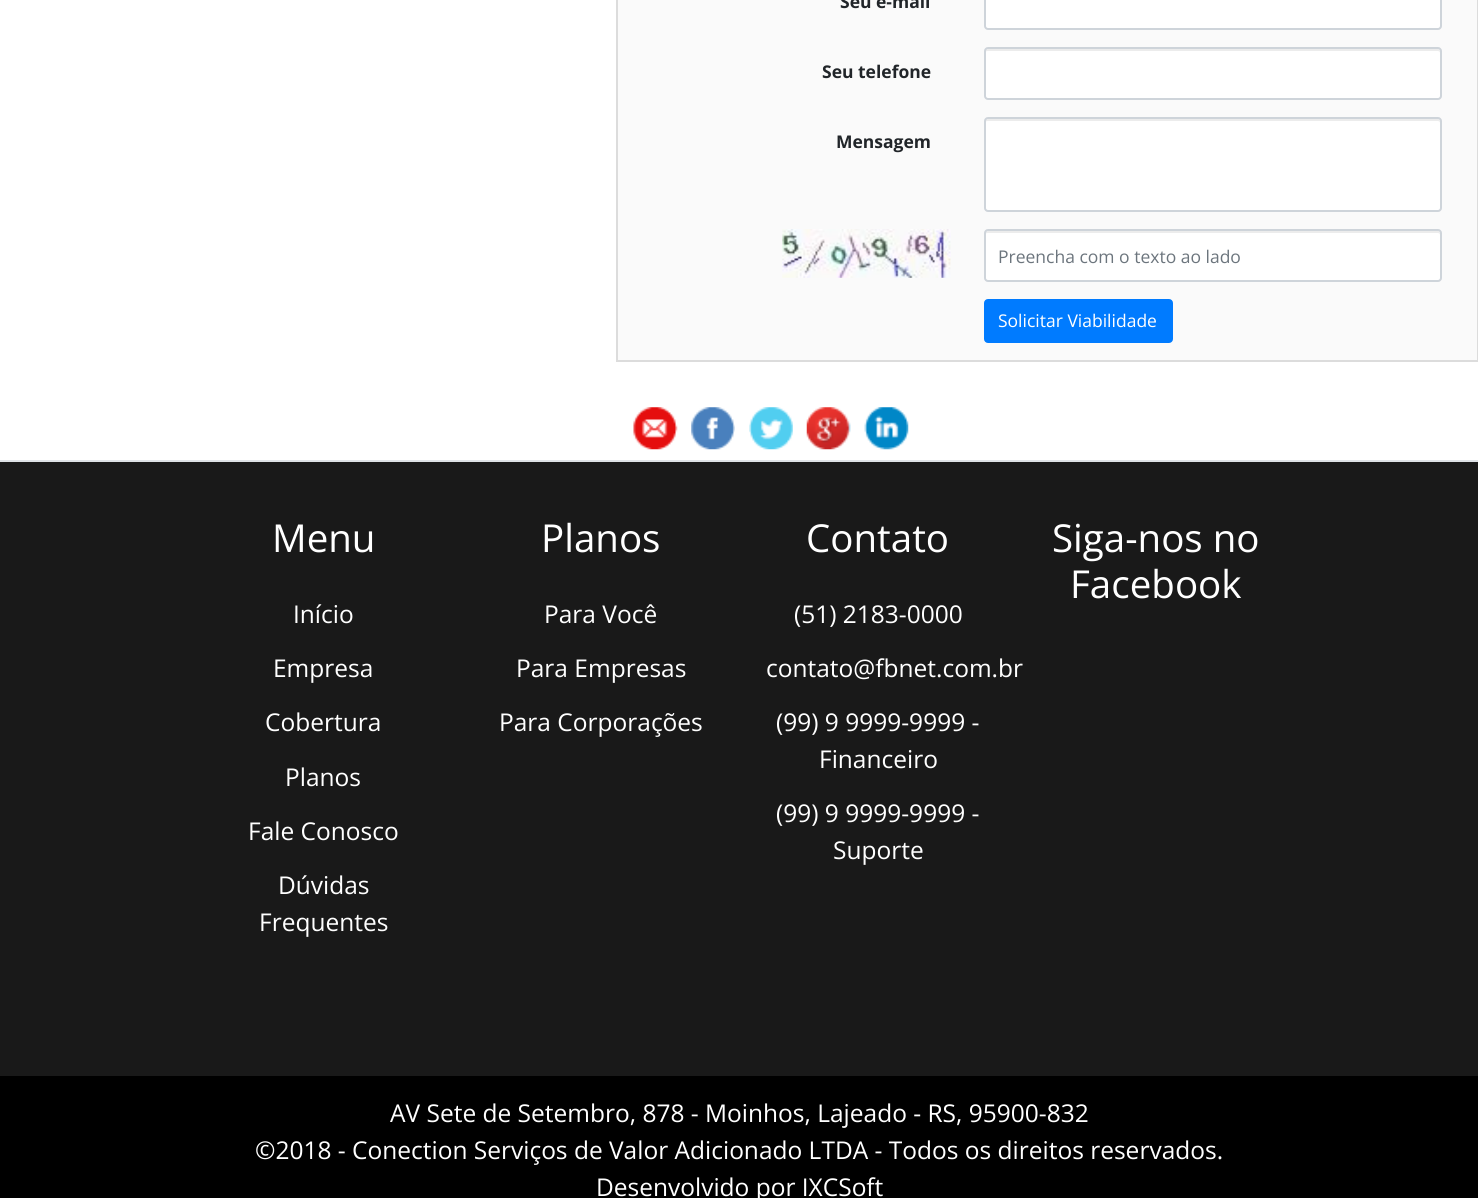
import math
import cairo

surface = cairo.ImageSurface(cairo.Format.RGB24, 1478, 1198)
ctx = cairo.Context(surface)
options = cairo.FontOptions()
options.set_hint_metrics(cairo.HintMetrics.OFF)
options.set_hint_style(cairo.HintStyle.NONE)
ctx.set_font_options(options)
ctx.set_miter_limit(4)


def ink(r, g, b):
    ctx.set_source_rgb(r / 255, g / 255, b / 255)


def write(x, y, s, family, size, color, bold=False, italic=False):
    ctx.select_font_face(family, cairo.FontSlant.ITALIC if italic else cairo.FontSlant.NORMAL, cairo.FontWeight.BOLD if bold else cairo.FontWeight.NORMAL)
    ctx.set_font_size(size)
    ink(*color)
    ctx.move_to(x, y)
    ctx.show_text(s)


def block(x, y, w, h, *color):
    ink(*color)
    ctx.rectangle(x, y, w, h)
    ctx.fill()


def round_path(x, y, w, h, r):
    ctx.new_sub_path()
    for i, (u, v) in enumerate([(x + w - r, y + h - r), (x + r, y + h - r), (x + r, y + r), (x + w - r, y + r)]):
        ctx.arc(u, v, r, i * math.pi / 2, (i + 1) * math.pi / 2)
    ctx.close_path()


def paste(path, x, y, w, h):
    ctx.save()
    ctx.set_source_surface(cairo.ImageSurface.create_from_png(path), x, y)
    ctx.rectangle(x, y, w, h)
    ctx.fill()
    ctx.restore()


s1 = dict(family="Open Sans", size=17.5, color=(33, 37, 41), bold=True)
s2 = dict(family="Open Sans", size=17.5, color=(108, 117, 125))
s3 = dict(family="Open Sans", size=17.5, color=(255, 255, 255))
s4 = dict(family="Open Sans", size=38.5, color=(255, 255, 255))
s5 = dict(family="Open Sans", size=24.5, color=(255, 255, 255))

ink(255, 255, 255)
ctx.paint()
ink(250, 250, 250)
ctx.rectangle(617, -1, 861, 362)
ctx.fill_preserve()
ink(220, 220, 220)
ctx.stroke()
write(840, 8, "Seu e-mail", **s1)
ink(255, 255, 255)
round_path(985, -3, 455, 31, 2.5)
ctx.fill()
round_path(985, -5, 456, 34, 3)
ink(206, 212, 218)
ctx.stroke()
write(822, 78, "Seu telefone", **s1)
ink(255, 255, 255)
round_path(985, 49, 455, 49, 2.5)
ctx.fill()
ink(236, 236, 236)
ctx.new_path()
ctx.move_to(988, 51)
ctx.line_to(1438, 51)
ctx.curve_to(1439, 51, 1440, 52, 1440, 53)
ctx.curve_to(1440, 51, 1440, 49, 1438, 49)
ctx.line_to(988, 49)
ctx.line_to(985, 50)
ctx.line_to(985, 53)
ctx.curve_to(985, 52, 986, 51, 988, 51)
ctx.close_path()
ctx.fill()
round_path(985, 48, 456, 51, 3)
ink(206, 212, 218)
ctx.stroke()
write(836, 148, "Mensagem", **s1)
ink(255, 255, 255)
round_path(985, 119, 455, 91, 2.5)
ctx.fill()
ink(236, 236, 236)
ctx.new_path()
ctx.move_to(988, 121)
ctx.line_to(1438, 121)
ctx.curve_to(1439, 121, 1440, 122, 1440, 123)
ctx.curve_to(1440, 121, 1440, 119, 1438, 119)
ctx.line_to(988, 119)
ctx.line_to(985, 120)
ctx.line_to(985, 123)
ctx.curve_to(985, 122, 986, 121, 988, 121)
ctx.close_path()
ctx.fill()
round_path(985, 118, 456, 93, 3)
ink(206, 212, 218)
ctx.stroke()
paste("pic1.png", 782, 229, 169, 49)
ink(255, 255, 255)
round_path(985, 231, 455, 49, 2.5)
ctx.fill()
ink(236, 236, 236)
ctx.new_path()
ctx.move_to(988, 233)
ctx.line_to(1438, 233)
ctx.curve_to(1439, 233, 1440, 234, 1440, 235)
ctx.curve_to(1440, 233, 1440, 231, 1438, 231)
ctx.line_to(988, 231)
ctx.line_to(985, 232)
ctx.line_to(985, 235)
ctx.curve_to(985, 234, 986, 233, 988, 233)
ctx.close_path()
ctx.fill()
round_path(985, 230, 456, 51, 3)
ink(206, 212, 218)
ctx.stroke()
write(998, 263, "Preencha com o texto ao lado", **s2)
ink(0, 123, 255)
round_path(985, 300, 187, 42, 3)
ctx.fill_preserve()
ctx.stroke()
write(998, 327, "Solicitar Viabilidade", **s3)
paste("pic2.png", 633, 407, 45, 43)
paste("pic3.png", 691, 407, 44, 43)
paste("pic4.png", 749, 407, 44, 43)
paste("pic5.png", 806, 407, 45, 43)
paste("pic6.png", 864, 407, 45, 43)
block(0, 460, 1478, 2, 222, 226, 230)
block(0, 462, 1478, 614, 25, 25, 25)
write(272, 552, "Menu", **s4)
write(293, 623, "Início", **s5)
write(273, 677, "Empresa", **s5)
write(265, 731, "Cobertura", **s5)
write(285, 786, "Planos", **s5)
write(248, 840, "Fale Conosco", **s5)
write(278, 894, "Dúvidas", **s5)
write(259, 931, "Frequentes", **s5)
write(541, 552, "Planos", **s4)
write(544, 623, "Para Você", **s5)
write(516, 677, "Para Empresas", **s5)
write(499, 731, "Para Corporações", **s5)
write(806, 552, "Contato", **s4)
write(794, 623, "(51) 2183-0000", **s5)
write(766, 677, "contato@fbnet.com.br", **s5)
write(776, 731, "(99) 9 9999-9999 -", **s5)
write(819, 768, "Financeiro", **s5)
write(776, 822, "(99) 9 9999-9999 -", **s5)
write(833, 859, "Suporte", **s5)
write(1052, 552, "Siga-nos no", **s4)
write(1070, 598, "Facebook", **s4)
block(0, 1076, 1478, 122, 0, 0, 0)
write(390, 1122, "AV Sete de Setembro, 878 - Moinhos, Lajeado - RS, 95900-832", **s5)
write(255, 1159, "©2018 - Conection Serviços de Valor Adicionado LTDA - Todos os direitos reservados.", **s5)
write(596, 1196, "Desenvolvido por IXCSoft", **s5)
surface.write_to_png("screenshot.png")
